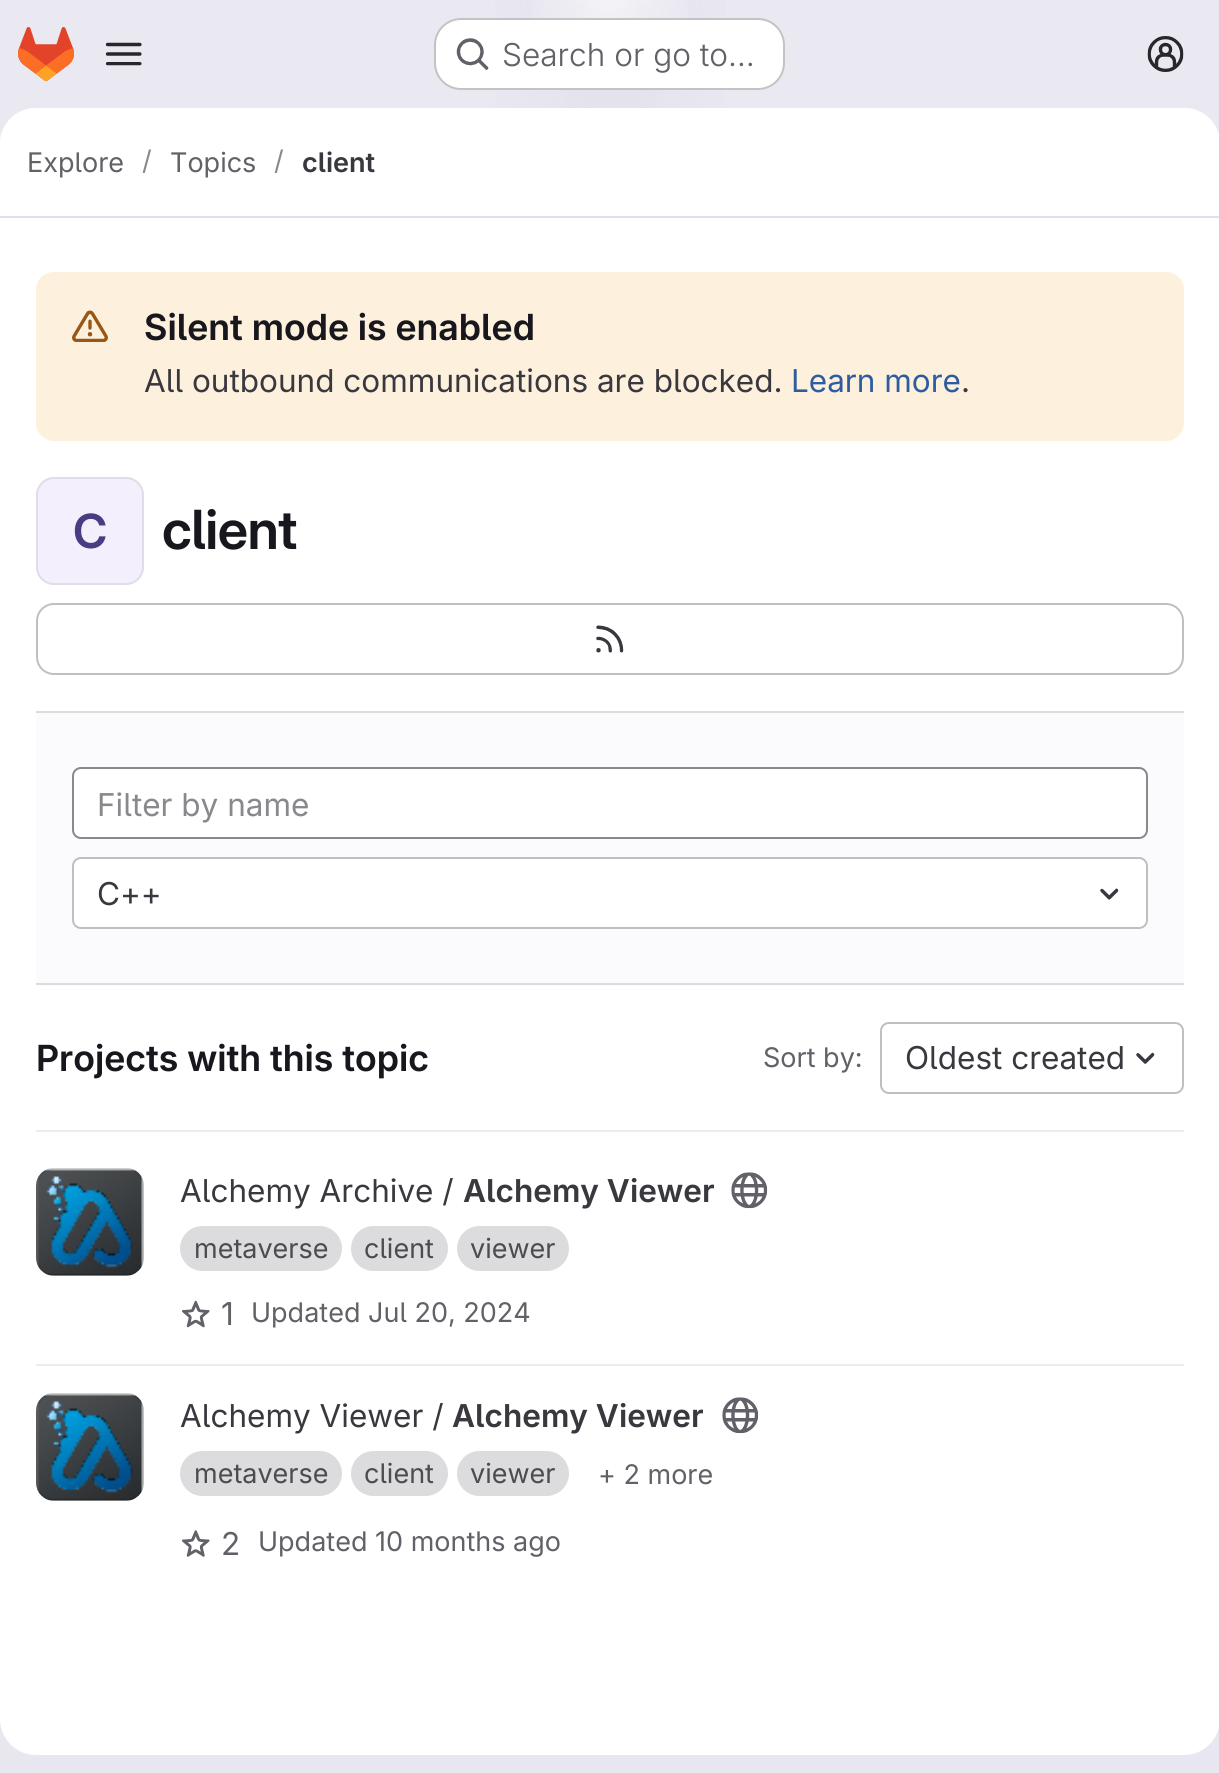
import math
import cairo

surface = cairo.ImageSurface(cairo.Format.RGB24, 1219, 1773)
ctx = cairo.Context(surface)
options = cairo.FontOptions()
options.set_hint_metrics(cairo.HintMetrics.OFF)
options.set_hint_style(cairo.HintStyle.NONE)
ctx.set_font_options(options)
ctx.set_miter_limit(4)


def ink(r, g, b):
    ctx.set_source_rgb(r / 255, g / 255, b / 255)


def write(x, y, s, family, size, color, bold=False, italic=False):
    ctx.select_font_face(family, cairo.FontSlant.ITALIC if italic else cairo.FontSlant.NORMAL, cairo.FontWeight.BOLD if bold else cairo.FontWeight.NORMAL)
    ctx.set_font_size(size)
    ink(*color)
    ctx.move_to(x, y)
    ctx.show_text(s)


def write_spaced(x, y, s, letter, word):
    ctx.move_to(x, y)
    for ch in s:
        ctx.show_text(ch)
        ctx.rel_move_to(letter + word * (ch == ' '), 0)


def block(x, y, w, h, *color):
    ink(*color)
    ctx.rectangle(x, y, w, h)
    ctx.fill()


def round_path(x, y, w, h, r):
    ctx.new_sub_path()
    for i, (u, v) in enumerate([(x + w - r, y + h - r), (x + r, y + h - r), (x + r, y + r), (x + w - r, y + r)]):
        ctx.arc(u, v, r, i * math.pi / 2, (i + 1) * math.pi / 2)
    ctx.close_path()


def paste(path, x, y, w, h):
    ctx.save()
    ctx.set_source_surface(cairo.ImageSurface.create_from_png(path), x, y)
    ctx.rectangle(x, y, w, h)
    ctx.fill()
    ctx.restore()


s1 = dict(family="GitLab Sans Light", size=31.5, color=(98, 97, 104))
s2 = dict(family="GitLab Sans", size=27, color=(98, 97, 104))
s3 = dict(family="GitLab Sans", size=27, color=(137, 136, 141))
s4 = dict(family="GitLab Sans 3 SemiBold", size=27, color=(58, 56, 63))
s5 = dict(family="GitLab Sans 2 SemiBold", size=36, color=(24, 23, 29))
s6 = dict(family="GitLab Sans", size=31.5, color=(58, 56, 63))
s7 = dict(family="GitLab Sans", size=31.5, color=(47, 92, 160))
s8 = dict(family="GitLab Sans", size=31.5, color=(137, 136, 141))
s9 = dict(family="GitLab Sans 3 SemiBold", size=31.5, color=(58, 56, 63))
s10 = dict(family="GitLab Sans", size=27, color=(76, 75, 81))
s11 = dict(family="GitLab Sans", size=31.5, color=(98, 97, 104))

ink(255, 255, 255)
ctx.paint()
gradient = cairo.LinearGradient(780, 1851, 440, -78)
gradient.add_color_stop_rgba(0, 0.91, 0.902, 0.941, 1)
gradient.add_color_stop_rgba(0.7, 0.918, 0.914, 0.949, 1)
ctx.set_source(gradient)
ctx.rectangle(0, 0, 1219, 1773)
ctx.fill()
gradient = cairo.RadialGradient(0, 0, 0, 0, 0, 1)
gradient.set_matrix(cairo.Matrix(1 / 610, 0, 0, 1 / 1773, -1 * 610 / 610, -1 * 0 / 1773))
gradient.add_color_stop_rgba(0, 0.894, 0.886, 0.929, 1)
gradient.add_color_stop_rgba(0.26, 0.894, 0.886, 0.929, 0)
ctx.set_source(gradient)
ctx.rectangle(495, 0, 230, 108)
ctx.fill()
gradient = cairo.RadialGradient(0, 0, 0, 0, 0, 1)
gradient.set_matrix(cairo.Matrix(1 / 610, 0, 0, 1 / 1773, -1 * 610 / 610, -1 * 0 / 1773))
gradient.add_color_stop_rgba(0, 0.894, 0.886, 0.925, 1)
gradient.add_color_stop_rgba(0.18, 0.894, 0.886, 0.925, 0)
ctx.set_source(gradient)
ctx.rectangle(565, 5, 90, 102)
ctx.fill()
gradient = cairo.RadialGradient(610, 0, 0, 610, 0, 1875)
gradient.add_color_stop_rgba(0, 1, 1, 1, 0.6)
gradient.add_color_stop_rgba(0.05, 1, 1, 1, 0)
ctx.set_source(gradient)
ctx.rectangle(532, 0, 156, 80)
ctx.fill()
paste("pic1.png", 18, 27, 56, 54)
paste("pic2.png", 105, 42, 37, 24)
ink(255, 255, 255)
round_path(434, 18, 351, 72, 27)
ctx.fill()
round_path(435, 19, 349, 70, 26)
ctx.set_source_rgba(0.02, 0.02, 0.024, 0.24)
ctx.stroke()
paste("pic3.png", 456, 38, 33, 32)
write(502, 66, "Search or go to…", **s1)
paste("pic4.png", 1147, 36, 37, 36)
ink(255, 255, 255)
round_path(0, 108, 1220, 1647, 36)
ctx.fill()
ctx.new_path()
ctx.move_to(36, 108)
ctx.line_to(1184, 108)
ctx.curve_to(1204, 108, 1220, 124, 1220, 144)
ctx.line_to(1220, 218)
ctx.line_to(0, 218)
ctx.line_to(0, 144)
ctx.curve_to(0, 124, 16, 108, 36, 108)
ctx.close_path()
ctx.fill()
block(0, 216, 1219, 2, 225, 223, 236)
write(27, 172, "Explore", **s2)
write(142, 170, "/", **s3)
write(170, 172, "Topics", **s2)
write(274, 170, "/", **s3)
write(302, 172, "client", **s4)
ink(253, 241, 221)
round_path(36, 272, 1148, 169, 18)
ctx.fill()
paste("pic5.png", 72, 310, 36, 32)
write(144, 340, "Silent mode is enabled", **s5)
write(144, 392, "All outbound communications are blocked.", **s6)
write(791, 392, "Learn more", **s7)
write(961, 392, ".", **s6)
ink(243, 239, 252)
round_path(36, 477, 108, 108, 18)
ctx.fill()
round_path(37, 478, 106, 106, 17)
ctx.set_source_rgba(0.02, 0.02, 0.024, 0.08)
ctx.stroke()
ctx.select_font_face("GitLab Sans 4 SemiBold")
ctx.set_font_size(47)
ink(73, 60, 131)
write_spaced(73, 548, "C", -0.5, 0)
ctx.select_font_face("GitLab Sans SemiBold")
ctx.set_font_size(54)
ink(24, 23, 29)
write_spaced(162, 549, "client", -0.5, 0)
round_path(37, 604, 1146, 70, 17)
ink(191, 191, 195)
ctx.stroke()
paste("pic6.png", 596, 625, 28, 28)
block(36, 713, 1148, 273, 251, 250, 253)
block(36, 711, 1148, 2, 220, 220, 222)
block(36, 983, 1148, 2, 220, 220, 222)
ink(255, 255, 255)
round_path(73, 768, 1074, 70, 8)
ctx.fill_preserve()
ink(137, 136, 141)
ctx.stroke()
write(97, 816, "Filter by name", **s8)
ink(255, 255, 255)
round_path(73, 858, 1074, 70, 8)
ctx.fill_preserve()
ink(191, 191, 195)
ctx.stroke()
write(97, 905, "C++", **s6)
paste("pic7.png", 1100, 888, 19, 12)
block(36, 1130, 1148, 2, 236, 236, 239)
write(36, 1071, "Projects with this topic", **s5)
write(763, 1067, "Sort by:", **s2)
round_path(881, 1023, 302, 70, 8)
ink(191, 191, 195)
ctx.stroke()
write(905, 1069, "Oldest created", **s6)
paste("pic8.png", 1136, 1052, 19, 12)
block(36, 1364, 1148, 2, 236, 236, 239)
paste("pic9.png", 36, 1168, 108, 108)
round_path(37, 1169, 106, 106, 17)
ctx.set_source_rgba(0.02, 0.02, 0.024, 0.08)
ctx.stroke()
write(180, 1202, "Alchemy Archive /", **s6)
write(463, 1202, "Alchemy Viewer", **s9)
paste("pic10.png", 731, 1172, 37, 37)
ink(220, 220, 222)
round_path(180, 1226, 162, 45, 22.5)
ctx.fill()
write(194, 1258, "metaverse", **s10)
ink(220, 220, 222)
round_path(351, 1226, 97, 45, 22.5)
ctx.fill()
write(364, 1258, "client", **s10)
ink(220, 220, 222)
round_path(457, 1226, 112, 45, 22.5)
ctx.fill()
write(470, 1258, "viewer", **s10)
paste("pic11.png", 182, 1300, 28, 28)
write(221, 1325, "1", **s11)
write(251, 1322, "Updated Jul 20, 2024", **s2)
paste("pic12.png", 36, 1393, 108, 108)
round_path(37, 1394, 106, 106, 17)
ctx.set_source_rgba(0.02, 0.02, 0.024, 0.08)
ctx.stroke()
write(180, 1427, "Alchemy Viewer /", **s6)
write(452, 1427, "Alchemy Viewer", **s9)
paste("pic13.png", 722, 1397, 37, 37)
ink(220, 220, 222)
round_path(180, 1451, 162, 45, 22.5)
ctx.fill()
write(194, 1483, "metaverse", **s10)
ink(220, 220, 222)
round_path(351, 1451, 97, 45, 22.5)
ctx.fill()
write(364, 1483, "client", **s10)
ink(220, 220, 222)
round_path(457, 1451, 112, 45, 22.5)
ctx.fill()
write(470, 1483, "viewer", **s10)
write(598, 1484, "+ 2 more", **s2)
paste("pic14.png", 182, 1530, 28, 27)
write(221, 1555, "2", **s11)
write(258, 1551, "Updated 10 months ago", **s2)
surface.write_to_png("screenshot.png")
